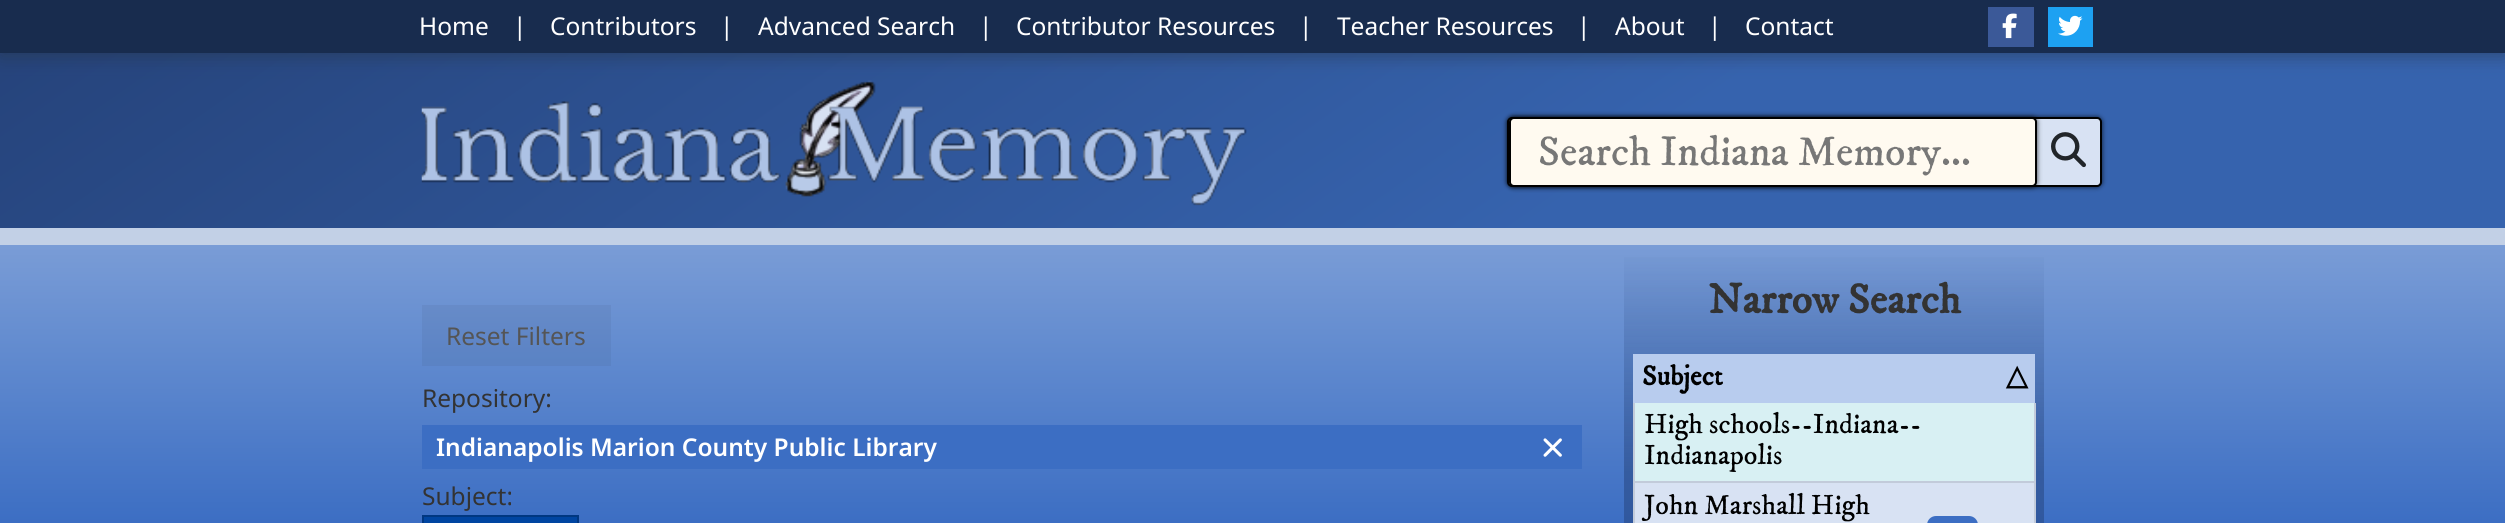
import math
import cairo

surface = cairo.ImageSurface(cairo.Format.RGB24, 2505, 523)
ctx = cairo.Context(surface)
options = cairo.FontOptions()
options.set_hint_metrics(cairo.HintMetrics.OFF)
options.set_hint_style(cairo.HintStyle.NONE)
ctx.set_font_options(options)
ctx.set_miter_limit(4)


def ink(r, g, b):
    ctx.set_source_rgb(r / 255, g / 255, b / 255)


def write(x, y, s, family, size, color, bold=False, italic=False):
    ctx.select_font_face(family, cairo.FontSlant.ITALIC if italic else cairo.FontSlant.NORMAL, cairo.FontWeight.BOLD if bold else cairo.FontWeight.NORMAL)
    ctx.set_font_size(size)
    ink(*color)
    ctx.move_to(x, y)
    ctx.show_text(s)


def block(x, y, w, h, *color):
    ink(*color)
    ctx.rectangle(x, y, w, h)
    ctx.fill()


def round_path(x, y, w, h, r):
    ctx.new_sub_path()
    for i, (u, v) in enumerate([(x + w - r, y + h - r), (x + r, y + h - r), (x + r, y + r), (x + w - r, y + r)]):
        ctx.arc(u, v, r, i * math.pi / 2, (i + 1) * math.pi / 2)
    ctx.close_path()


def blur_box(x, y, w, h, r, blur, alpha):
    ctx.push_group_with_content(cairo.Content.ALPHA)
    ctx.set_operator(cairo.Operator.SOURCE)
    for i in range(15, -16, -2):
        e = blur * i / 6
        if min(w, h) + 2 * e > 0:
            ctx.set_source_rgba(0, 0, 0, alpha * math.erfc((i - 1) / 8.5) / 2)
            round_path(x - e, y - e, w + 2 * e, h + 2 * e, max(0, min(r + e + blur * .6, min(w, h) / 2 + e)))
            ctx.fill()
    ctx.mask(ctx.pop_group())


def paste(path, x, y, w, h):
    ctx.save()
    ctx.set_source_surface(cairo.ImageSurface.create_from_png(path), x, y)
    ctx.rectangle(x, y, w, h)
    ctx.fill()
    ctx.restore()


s1 = dict(family="Noto Sans", size=24.5, color=(255, 255, 255))
s2 = dict(family="IM FELL DW Pica", size=42, color=(119, 119, 119))
s3 = dict(family="Noto Sans", size=24.5, color=(85, 85, 85))
s4 = dict(family="Noto Sans", size=24.5, color=(51, 51, 51))
s5 = dict(family="Noto Sans SemiBold", size=24.5, color=(255, 255, 255))
s6 = dict(family="IM FELL DW Pica", size=42, color=(51, 51, 51), bold=True)
s7 = dict(family="IM FELL DW Pica", size=28, color=(0, 0, 0), bold=True)
s8 = dict(family="DejaVu Sans", size=28, color=(0, 0, 0), bold=True)
s9 = dict(family="IM FELL DW Pica", size=28, color=(0, 0, 0))

ink(255, 255, 255)
ctx.paint()
gradient = cairo.LinearGradient(1253, 523, 1253, 0)
gradient.add_color_stop_rgba(0, 0.235, 0.431, 0.765, 1)
gradient.add_color_stop_rgba(0.33, 0.384, 0.545, 0.812, 1)
gradient.add_color_stop_rgba(0.67, 0.541, 0.659, 0.859, 1)
gradient.add_color_stop_rgba(1, 0.541, 0.659, 0.859, 1)
ctx.set_source(gradient)
ctx.rectangle(0, 245, 2505, 278)
ctx.fill()
gradient = cairo.LinearGradient(1723, 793, 783, -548)
gradient.add_color_stop_rgba(0.35, 0.212, 0.388, 0.682, 1)
gradient.add_color_stop_rgba(1, 0.145, 0.259, 0.475, 1)
ctx.set_source(gradient)
ctx.rectangle(0, 53, 2505, 175)
ctx.fill()
paste("pic3.png", 421, 80, 826, 126)
ink(36, 50, 66)
blur_box(0, 4, 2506, 52, 0, 9, 0.54)
block(0, 0, 2505, 53, 24, 44, 78)
write(419, 35, "Home", **s1)
write(513, 35, "|", **s1)
write(550, 35, "Contributors", **s1)
write(720, 35, "|", **s1)
write(758, 35, "Advanced Search", **s1)
write(979, 35, "|", **s1)
write(1016, 35, "Contributor Resources", **s1)
write(1299, 35, "|", **s1)
write(1337, 35, "Teacher Resources", **s1)
write(1577, 35, "|", **s1)
write(1615, 35, "About", **s1)
write(1708, 35, "|", **s1)
write(1745, 35, "Contact", **s1)
block(1988, 7, 46, 40, 59, 89, 152)
paste("pic1.png", 2002, 13, 15, 26)
block(2048, 7, 45, 40, 29, 161, 242)
paste("pic2.png", 2058, 15, 25, 21)
block(0, 228, 2505, 17, 194, 208, 230)
ink(0, 0, 0)
blur_box(1507, 117, 595, 70, 5, 2.5, 0.75)
ink(216, 226, 243)
round_path(1508, 118, 593, 68, 4)
ctx.fill_preserve()
ink(0, 0, 0)
ctx.stroke()
ink(0, 0, 0)
blur_box(1509, 117, 528, 70, 5, 2.5, 0.75)
ink(255, 250, 240)
round_path(1510, 118, 526, 68, 4)
ctx.fill_preserve()
ink(0, 0, 0)
ctx.stroke()
write(1538, 165, "Search Indiana Memory...", **s2)
paste("pic4.png", 2051, 132, 35, 36)
ctx.set_source_rgba(0, 0, 0, 0.05)
ctx.rectangle(422, 305, 189, 61)
ctx.fill()
write(446, 345, "Reset Filters", **s3)
write(422, 407, "Repository:", **s4)
block(422, 425, 1160, 44, 60, 110, 195)
write(436, 456, "Indianapolis Marion County Public Library", **s5)
paste("pic5.png", 1543, 438, 19, 19)
write(422, 505, "Subject:", **s4)
ink(0, 69, 161)
ctx.rectangle(423, 516, 155, 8)
ctx.fill_preserve()
ink(0, 55, 129)
ctx.stroke()
gradient = cairo.LinearGradient(1834, 245, 1834, 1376)
gradient.add_color_stop_rgba(0, 0.145, 0.259, 0.475, 0)
gradient.add_color_stop_rgba(0.2, 0.145, 0.259, 0.475, 0.5)
gradient.add_color_stop_rgba(0.8, 0.145, 0.259, 0.475, 0.5)
gradient.add_color_stop_rgba(1, 0.145, 0.259, 0.475, 0)
ctx.set_source(gradient)
ctx.rectangle(1624, 257, 420, 266)
ctx.fill()
write(1708, 313, "Narrow Search", **s6)
block(1633, 354, 402, 49, 184, 204, 238)
write(1642, 385, "Subject", **s7)
write(2006, 385, "△", **s8)
block(2034, 403, 2, 120, 194, 203, 218)
block(1633, 403, 2, 120, 194, 203, 218)
block(1635, 403, 399, 78, 216, 240, 243)
block(1635, 481, 399, 2, 194, 203, 218)
write(1644, 433, "High schools--Indiana--", **s9)
write(1644, 464, "Indianapolis", **s9)
block(1635, 483, 399, 40, 216, 226, 243)
write(1644, 514, "John Marshall High", **s9)
ink(60, 110, 195)
round_path(1927, 516, 51, 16, 9)
ctx.fill()
surface.write_to_png("screenshot.png")
